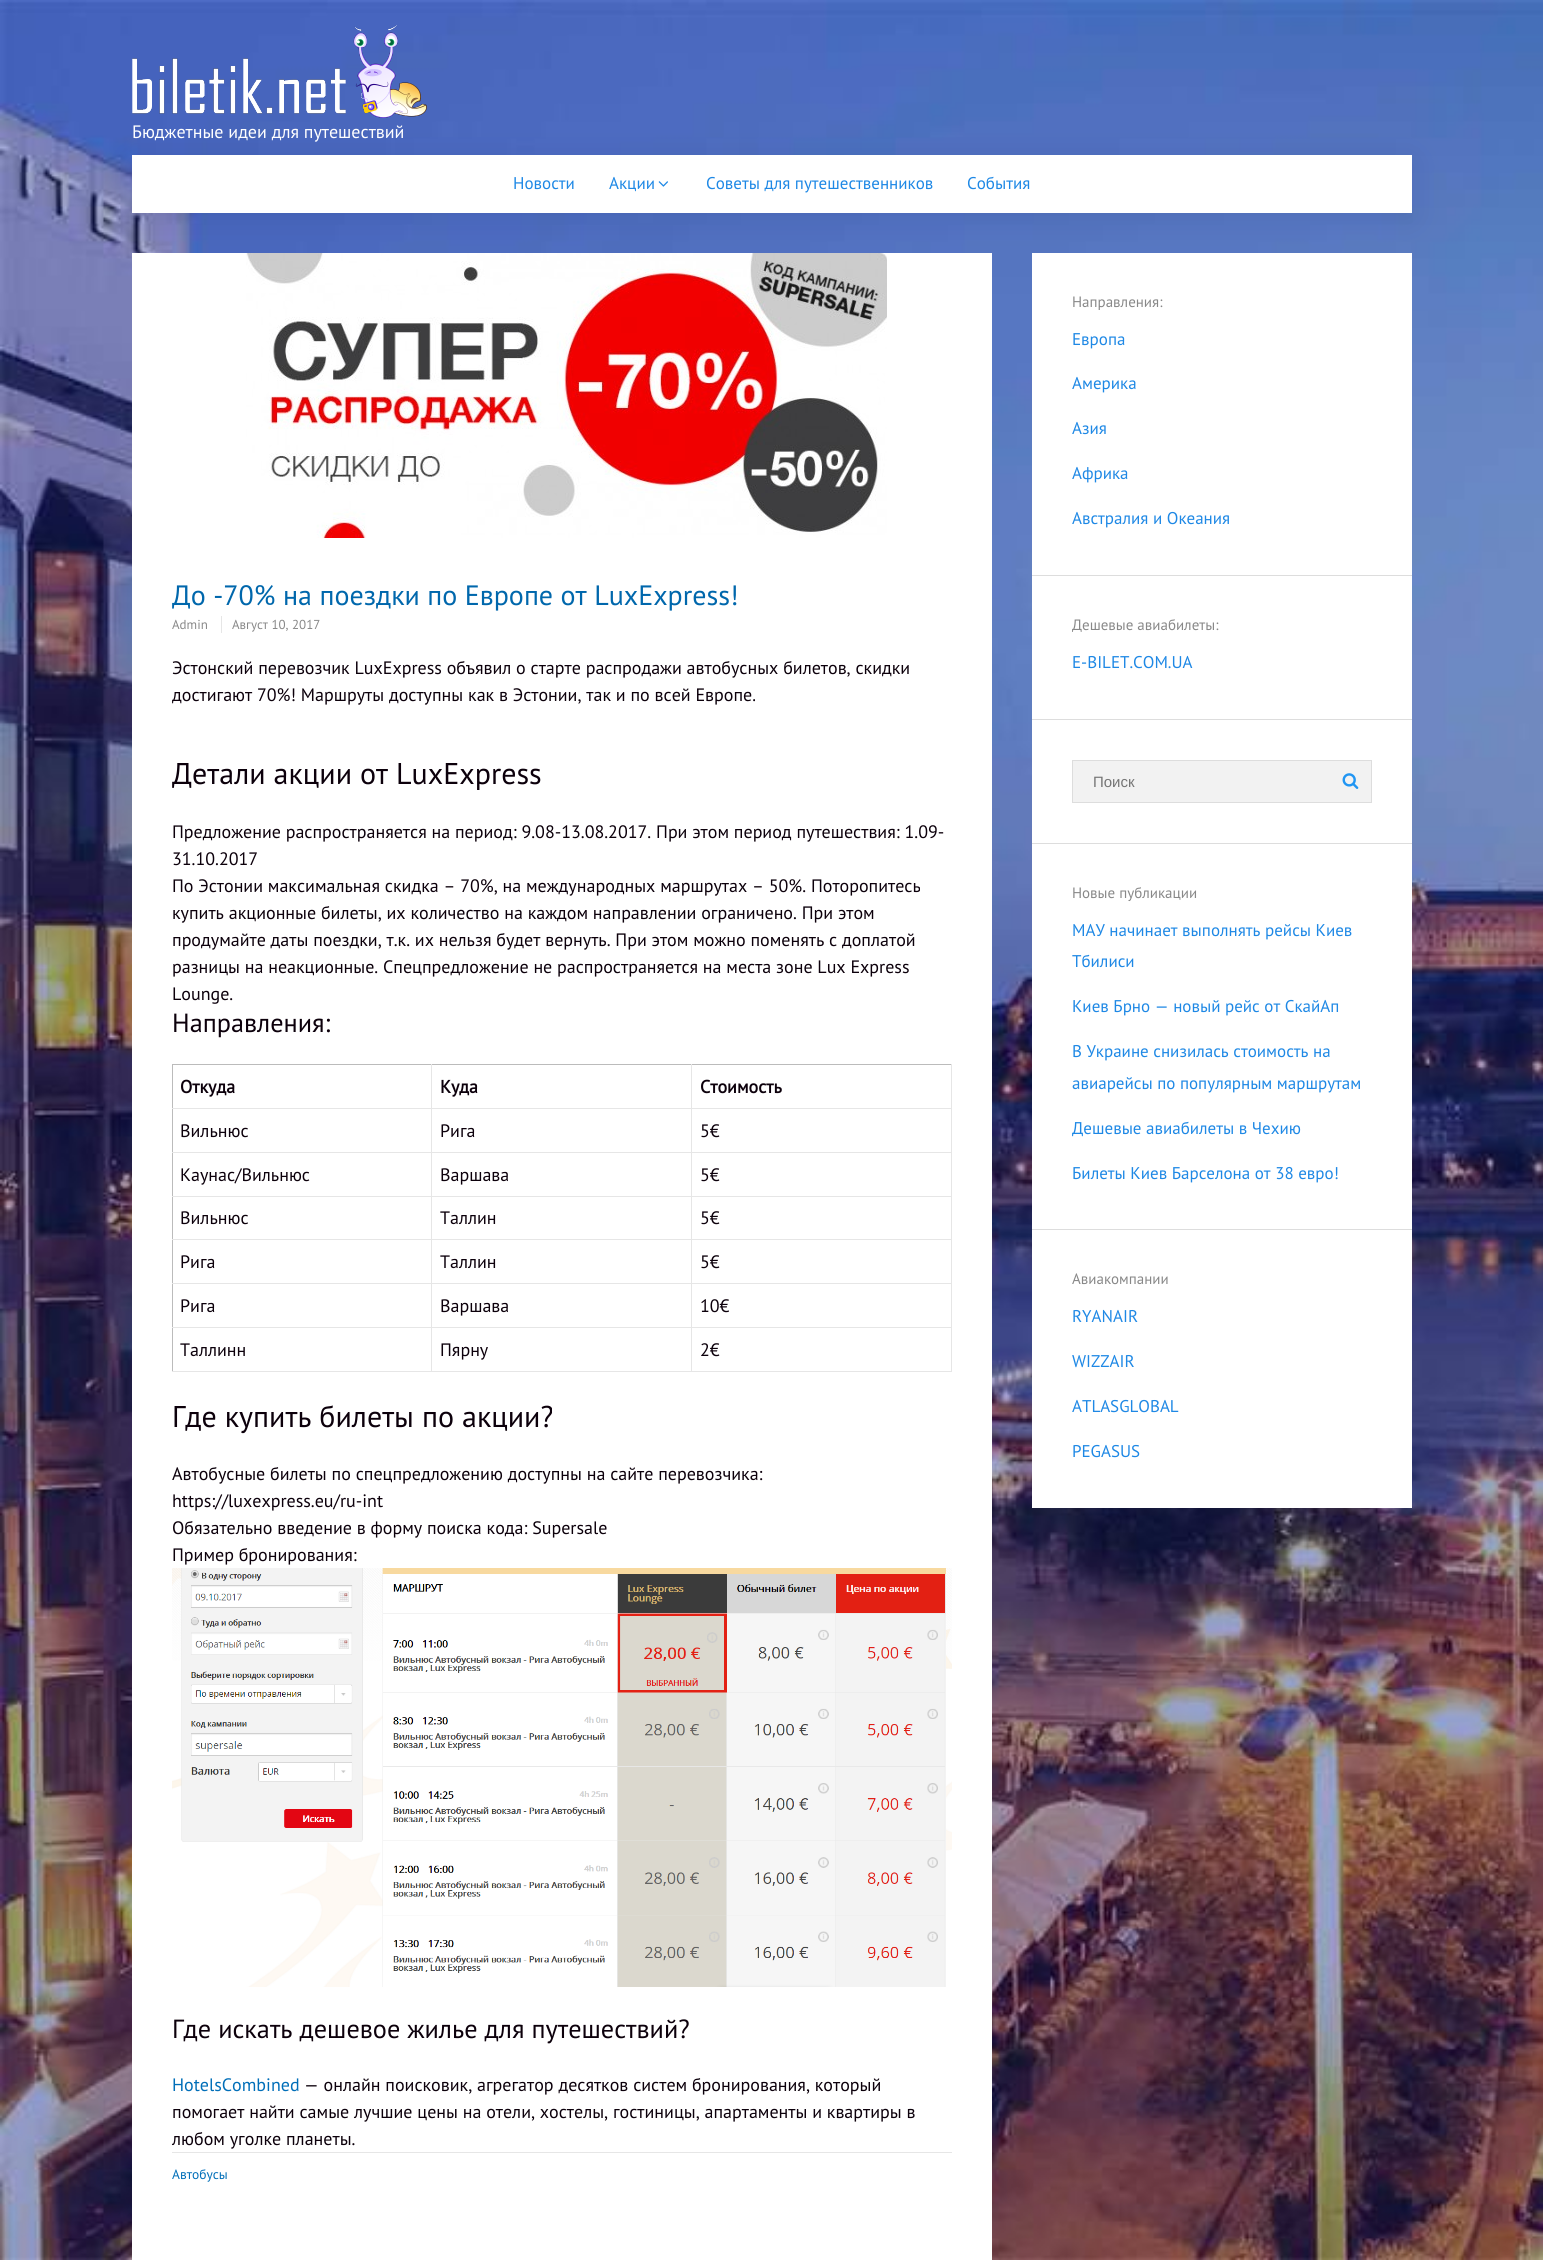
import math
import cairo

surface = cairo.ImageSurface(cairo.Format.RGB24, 1543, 2260)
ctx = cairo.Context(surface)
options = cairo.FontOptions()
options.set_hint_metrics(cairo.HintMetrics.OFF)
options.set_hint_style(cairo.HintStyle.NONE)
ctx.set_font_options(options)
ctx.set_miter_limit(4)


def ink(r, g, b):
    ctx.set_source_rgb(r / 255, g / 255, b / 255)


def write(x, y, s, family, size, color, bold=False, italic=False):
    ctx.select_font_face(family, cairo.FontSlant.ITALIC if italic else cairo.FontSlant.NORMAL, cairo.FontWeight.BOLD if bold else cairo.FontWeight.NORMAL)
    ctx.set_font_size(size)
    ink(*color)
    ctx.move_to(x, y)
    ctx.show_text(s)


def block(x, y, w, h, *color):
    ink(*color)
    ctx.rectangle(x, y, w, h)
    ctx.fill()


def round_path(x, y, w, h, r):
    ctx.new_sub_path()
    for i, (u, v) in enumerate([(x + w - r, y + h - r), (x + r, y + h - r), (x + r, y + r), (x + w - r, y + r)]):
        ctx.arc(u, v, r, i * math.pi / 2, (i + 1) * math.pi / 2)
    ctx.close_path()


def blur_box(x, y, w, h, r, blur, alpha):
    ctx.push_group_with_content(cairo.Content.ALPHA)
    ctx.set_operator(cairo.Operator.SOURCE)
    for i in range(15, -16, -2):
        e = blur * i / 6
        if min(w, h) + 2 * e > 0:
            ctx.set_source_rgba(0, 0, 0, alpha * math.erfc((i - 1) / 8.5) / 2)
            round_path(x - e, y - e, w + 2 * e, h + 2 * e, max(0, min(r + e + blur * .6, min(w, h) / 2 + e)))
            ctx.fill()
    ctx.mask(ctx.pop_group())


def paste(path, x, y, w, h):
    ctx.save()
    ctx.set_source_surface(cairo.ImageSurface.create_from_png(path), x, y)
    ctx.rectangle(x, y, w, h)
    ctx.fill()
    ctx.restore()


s1 = dict(family="PT Sans", size=18, color=(255, 255, 255))
s2 = dict(family="PT Sans", size=17, color=(30, 136, 229))
s3 = dict(family="PT Sans", size=28, color=(0, 103, 172))
s4 = dict(family="PT Sans", size=13, color=(136, 136, 136))
s5 = dict(family="PT Sans", size=18, color=(12, 0, 11))
s6 = dict(family="PT Sans", size=30, color=(12, 0, 11))
s7 = dict(family="PT Sans", size=26.25, color=(12, 0, 11))
s8 = dict(family="PT Sans", size=18, color=(12, 0, 11), bold=True)
s9 = dict(family="PT Sans", size=18, color=(0, 110, 184))
s10 = dict(family="PT Sans", size=13.5, color=(0, 110, 184))
s11 = dict(family="PT Sans", size=15, color=(136, 136, 136))
s12 = dict(family="Liberation Sans", size=15, color=(117, 117, 117))

ink(255, 255, 255)
ctx.paint()
paste("pic1.png", 0, 0, 1543, 2260)
ink(0, 21, 80)
blur_box(132, 160, 1280, 58, 0, 15, 0.1)
paste("pic2.png", 132, 25, 295, 93)
write(132, 138, "Бюджетные идеи для путешествий", **s1)
block(132, 155, 1280, 58, 255, 255, 255)
write(513, 189, "Новости", **s2)
write(609, 189, "Акции", **s2)
paste("pic3.png", 658, 181, 10, 6)
write(706, 189, "Советы для путешественников", **s2)
write(967, 189, "События", **s2)
block(132, 253, 860, 2007, 255, 255, 255)
paste("pic4.png", 246, 253, 641, 285)
write(172, 605, "До -70% на поездки по Европе от LuxExpress!", **s3)
write(172, 629, "Admin", **s4)
block(221, 616, 1, 17, 230, 230, 230)
write(232, 629, "Август 10, 2017", **s4)
write(172, 674, "Эстонский перевозчик LuxExpress объявил о старте распродажи автобусных билетов, скидки", **s5)
write(172, 701, "достигают 70%! Маршруты доступны как в Эстонии, так и по всей Европе.", **s5)
write(172, 784, "Детали акции от LuxExpress", **s6)
write(172, 838, "Предложение распространяется на период: 9.08-13.08.2017. При этом период путешествия: 1.09-", **s5)
write(172, 865, "31.10.2017", **s5)
write(172, 892, "По Эстонии максимальная скидка – 70%, на международных маршрутах – 50%. Поторопитесь", **s5)
write(172, 919, "купить акционные билеты, их количество на каждом направлении ограничено. При этом", **s5)
write(172, 946, "продумайте даты поездки, т.к. их нельзя будет вернуть. При этом можно поменять с доплатой", **s5)
write(172, 973, "разницы на неакционные. Спецпредложение не распространяется на места зоне Lux Express", **s5)
write(172, 1000, "Lounge.", **s5)
write(172, 1032, "Направления:", **s7)
block(172, 1064, 780, 1, 187, 187, 187)
block(172, 1064, 1, 308, 187, 187, 187)
block(951, 1064, 1, 308, 230, 230, 230)
block(691, 1371, 261, 1, 230, 230, 230)
block(691, 1327, 1, 45, 230, 230, 230)
block(691, 1327, 261, 1, 230, 230, 230)
block(691, 1283, 1, 45, 230, 230, 230)
block(691, 1283, 261, 1, 230, 230, 230)
block(691, 1239, 1, 45, 230, 230, 230)
block(691, 1239, 261, 1, 230, 230, 230)
block(691, 1196, 1, 44, 230, 230, 230)
block(691, 1196, 261, 1, 230, 230, 230)
block(691, 1152, 1, 45, 230, 230, 230)
block(691, 1152, 261, 1, 230, 230, 230)
block(691, 1108, 1, 45, 230, 230, 230)
block(691, 1108, 261, 1, 230, 230, 230)
block(691, 1064, 1, 45, 230, 230, 230)
block(431, 1371, 261, 1, 230, 230, 230)
block(431, 1327, 1, 45, 230, 230, 230)
block(431, 1327, 261, 1, 230, 230, 230)
block(431, 1283, 1, 45, 230, 230, 230)
block(431, 1283, 261, 1, 230, 230, 230)
block(431, 1239, 1, 45, 230, 230, 230)
block(431, 1239, 261, 1, 230, 230, 230)
block(431, 1196, 1, 44, 230, 230, 230)
block(431, 1196, 261, 1, 230, 230, 230)
block(431, 1152, 1, 45, 230, 230, 230)
block(431, 1152, 261, 1, 230, 230, 230)
block(431, 1108, 1, 45, 230, 230, 230)
block(431, 1108, 261, 1, 230, 230, 230)
block(431, 1064, 1, 45, 230, 230, 230)
block(172, 1108, 260, 1, 230, 230, 230)
write(180, 1093, "Откуда", **s8)
write(440, 1093, "Куда", **s8)
write(700, 1093, "Стоимость", **s8)
block(172, 1152, 260, 1, 230, 230, 230)
write(180, 1137, "Вильнюс", **s5)
write(440, 1137, "Рига", **s5)
write(700, 1137, "5€", **s5)
block(172, 1196, 260, 1, 230, 230, 230)
write(180, 1181, "Каунас/Вильнюс", **s5)
write(440, 1181, "Варшава", **s5)
write(700, 1181, "5€", **s5)
block(172, 1239, 260, 1, 230, 230, 230)
write(180, 1224, "Вильнюс", **s5)
write(440, 1224, "Таллин", **s5)
write(700, 1224, "5€", **s5)
block(172, 1283, 260, 1, 230, 230, 230)
write(180, 1268, "Рига", **s5)
write(440, 1268, "Таллин", **s5)
write(700, 1268, "5€", **s5)
block(172, 1327, 260, 1, 230, 230, 230)
write(180, 1312, "Рига", **s5)
write(440, 1312, "Варшава", **s5)
write(700, 1312, "10€", **s5)
block(172, 1371, 260, 1, 230, 230, 230)
write(180, 1356, "Таллинн", **s5)
write(440, 1356, "Пярну", **s5)
write(700, 1356, "2€", **s5)
write(172, 1427, "Где купить билеты по акции?", **s6)
write(172, 1480, "Автобусные билеты по спецпредложению доступны на сайте перевозчика:", **s5)
write(172, 1507, "https://luxexpress.eu/ru-int", **s5)
write(172, 1534, "Обязательно введение в форму поиска кода: Supersale", **s5)
write(172, 1561, "Пример бронирования:", **s5)
paste("pic5.png", 172, 1568, 780, 419)
write(172, 2038, "Где искать дешевое жилье для путешествий?", **s7)
write(172, 2091, "HotelsCombined", **s9)
write(304, 2091, "— онлайн поисковик, агрегатор десятков систем бронирования, который", **s5)
write(172, 2118, "помогает найти самые лучшие цены на отели, хостелы, гостиницы, апартаменты и квартиры в", **s5)
write(172, 2145, "любом уголке планеты.", **s5)
block(172, 2152, 780, 1, 230, 230, 230)
write(172, 2179, "Автобусы", **s10)
block(1032, 253, 380, 322, 255, 255, 255)
write(1072, 307, "Направления:", **s11)
write(1072, 345, "Европа", **s2)
write(1072, 389, "Америка", **s2)
write(1072, 434, "Азия", **s2)
write(1072, 479, "Африка", **s2)
write(1072, 524, "Австралия и Океания", **s2)
block(1032, 576, 380, 143, 255, 255, 255)
block(1032, 575, 380, 1, 221, 221, 221)
write(1072, 630, "Дешевые авиабилеты:", **s11)
write(1072, 668, "E-BILET.COM.UA", **s2)
block(1032, 720, 380, 123, 255, 255, 255)
block(1032, 719, 380, 1, 221, 221, 221)
ink(242, 242, 242)
ctx.rectangle(1072.5, 760.5, 299, 42)
ctx.fill_preserve()
ink(221, 221, 221)
ctx.set_line_width(1)
ctx.stroke()
write(1093, 787, "Поиск", **s12)
paste("pic6.png", 1342, 773, 17, 16)
block(1032, 844, 380, 385, 255, 255, 255)
block(1032, 843, 380, 1, 221, 221, 221)
write(1072, 898, "Новые публикации", **s11)
write(1072, 936, "МАУ начинает выполнять рейсы Киев", **s2)
write(1072, 967, "Тбилиси", **s2)
write(1072, 1012, "Киев Брно — новый рейс от СкайАп", **s2)
write(1072, 1057, "В Украине снизилась стоимость на", **s2)
write(1072, 1089, "авиарейсы по популярным маршрутам", **s2)
write(1072, 1134, "Дешевые авиабилеты в Чехию", **s2)
write(1072, 1179, "Билеты Киев Барселона от 38 евро!", **s2)
block(1032, 1230, 380, 278, 255, 255, 255)
block(1032, 1229, 380, 1, 221, 221, 221)
write(1072, 1284, "Авиакомпании", **s11)
write(1072, 1322, "RYANAIR", **s2)
write(1072, 1367, "WIZZAIR", **s2)
write(1072, 1412, "ATLASGLOBAL", **s2)
write(1072, 1457, "PEGASUS", **s2)
surface.write_to_png("screenshot.png")
